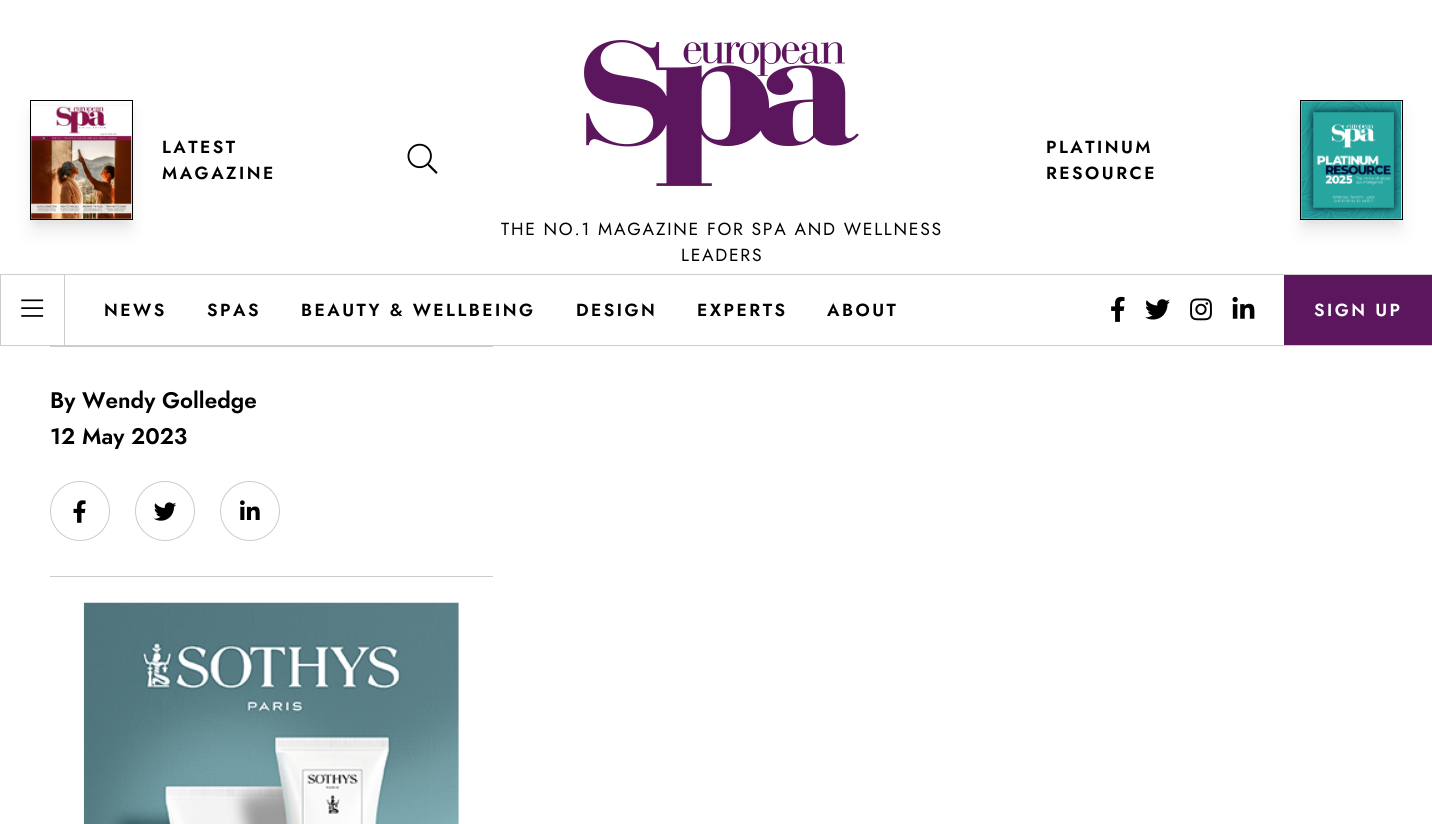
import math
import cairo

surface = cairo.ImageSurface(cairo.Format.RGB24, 1432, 824)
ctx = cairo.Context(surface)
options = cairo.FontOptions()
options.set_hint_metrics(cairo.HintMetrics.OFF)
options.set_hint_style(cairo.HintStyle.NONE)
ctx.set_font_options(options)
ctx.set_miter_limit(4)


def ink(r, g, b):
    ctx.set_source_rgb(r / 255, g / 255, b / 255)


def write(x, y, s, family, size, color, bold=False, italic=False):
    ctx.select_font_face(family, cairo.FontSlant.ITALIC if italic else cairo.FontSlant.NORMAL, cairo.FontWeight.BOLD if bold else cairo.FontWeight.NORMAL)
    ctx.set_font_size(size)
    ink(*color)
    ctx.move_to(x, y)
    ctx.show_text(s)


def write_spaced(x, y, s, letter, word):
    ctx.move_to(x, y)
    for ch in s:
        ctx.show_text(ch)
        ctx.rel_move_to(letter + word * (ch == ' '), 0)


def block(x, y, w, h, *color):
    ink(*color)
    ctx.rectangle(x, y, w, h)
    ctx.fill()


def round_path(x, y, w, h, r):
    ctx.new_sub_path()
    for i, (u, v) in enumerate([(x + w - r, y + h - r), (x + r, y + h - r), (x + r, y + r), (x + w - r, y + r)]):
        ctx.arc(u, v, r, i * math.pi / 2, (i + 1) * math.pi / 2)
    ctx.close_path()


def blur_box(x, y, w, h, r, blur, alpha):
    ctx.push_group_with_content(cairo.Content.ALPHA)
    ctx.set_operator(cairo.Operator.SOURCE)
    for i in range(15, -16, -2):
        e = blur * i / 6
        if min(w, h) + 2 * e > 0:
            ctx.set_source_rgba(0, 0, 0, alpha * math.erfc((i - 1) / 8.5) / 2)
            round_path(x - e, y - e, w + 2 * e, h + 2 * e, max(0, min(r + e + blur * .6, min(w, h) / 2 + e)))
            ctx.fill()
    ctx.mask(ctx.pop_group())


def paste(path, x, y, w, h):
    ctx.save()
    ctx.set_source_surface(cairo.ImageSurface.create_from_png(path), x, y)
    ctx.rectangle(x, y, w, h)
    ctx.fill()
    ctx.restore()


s1 = dict(family="Jost SemiBold", size=22.5, color=(0, 0, 0))

ink(255, 255, 255)
ctx.paint()
ink(0, 0, 0)
blur_box(33, 108, 97, 115, 0, 4, 0.05)
blur_box(34, 116, 95, 113, 0, 9.5, 0.1)
ctx.rectangle(30.5, 100.5, 102, 119)
ink(0, 0, 0)
ctx.set_line_width(1)
ctx.stroke()
paste("pic1.png", 31, 106, 101, 113)
ctx.select_font_face("Jost SemiBold")
ctx.set_font_size(17.5)
write_spaced(162, 153, "LATEST", 2.5, 0)
write_spaced(162, 179, "MAGAZINE", 2.5, 0)
paste("pic2.png", 407, 143, 31, 31)
write_spaced(1046, 153, "PLATINUM", 2.5, 0)
write_spaced(1046, 179, "RESOURCE", 2.5, 0)
ink(0, 0, 0)
blur_box(1303, 108, 97, 115, 0, 4, 0.05)
blur_box(1304, 116, 95, 113, 0, 9.5, 0.1)
ctx.rectangle(1300.5, 100.5, 102, 119)
ink(0, 0, 0)
ctx.stroke()
paste("pic3.png", 1301, 101, 101, 118)
paste("pic4.png", 584, 40, 275, 146)
ctx.select_font_face("Jost")
write_spaced(501, 235, "THE NO.1 MAGAZINE FOR SPA AND WELLNESS", 1.75, 0)
write_spaced(681, 261, "LEADERS", 1.75, 0)
block(0, 274, 1432, 1, 204, 204, 204)
block(0, 345, 1432, 1, 204, 204, 204)
block(64, 275, 1, 70, 204, 204, 204)
block(0, 275, 1, 70, 204, 204, 204)
paste("pic5.png", 21, 299, 23, 18)
ctx.select_font_face("Jost SemiBold")
ink(0, 0, 0)
write_spaced(104, 316, "NEWS", 2.5, 0)
write_spaced(207, 316, "SPAS", 2.5, 0)
write_spaced(301, 316, "BEAUTY & WELLBEING", 2.5, 0)
write_spaced(576, 316, "DESIGN", 2.5, 0)
write_spaced(697, 316, "EXPERTS", 2.5, 0)
write_spaced(827, 316, "ABOUT", 2.5, 0)
paste("pic6.png", 1111, 296, 14, 26)
paste("pic7.png", 1145, 299, 25, 21)
paste("pic8.png", 1190, 298, 22, 23)
paste("pic9.png", 1232, 296, 23, 23)
block(1284, 275, 148, 70, 91, 22, 94)
ink(255, 255, 255)
write_spaced(1314, 316, "SIGN UP", 2.5, 0)
block(50, 346, 443, 1, 204, 204, 204)
block(50, 576, 443, 1, 204, 204, 204)
write(50, 408, "By Wendy Golledge", **s1)
write(50, 444, "12 May 2023", **s1)
ctx.new_path()
ctx.arc(80, 511, 29.5, 0, 2 * math.pi)
ink(204, 204, 204)
ctx.stroke()
paste("pic10.png", 73, 500, 13, 23)
ctx.arc(165, 511, 29.5, 0, 2 * math.pi)
ctx.stroke()
paste("pic11.png", 154, 502, 23, 19)
ctx.arc(250, 511, 29.5, 0, 2 * math.pi)
ctx.stroke()
paste("pic12.png", 240, 500, 20, 20)
paste("pic13.png", 83, 602, 376, 222)
surface.write_to_png("screenshot.png")
